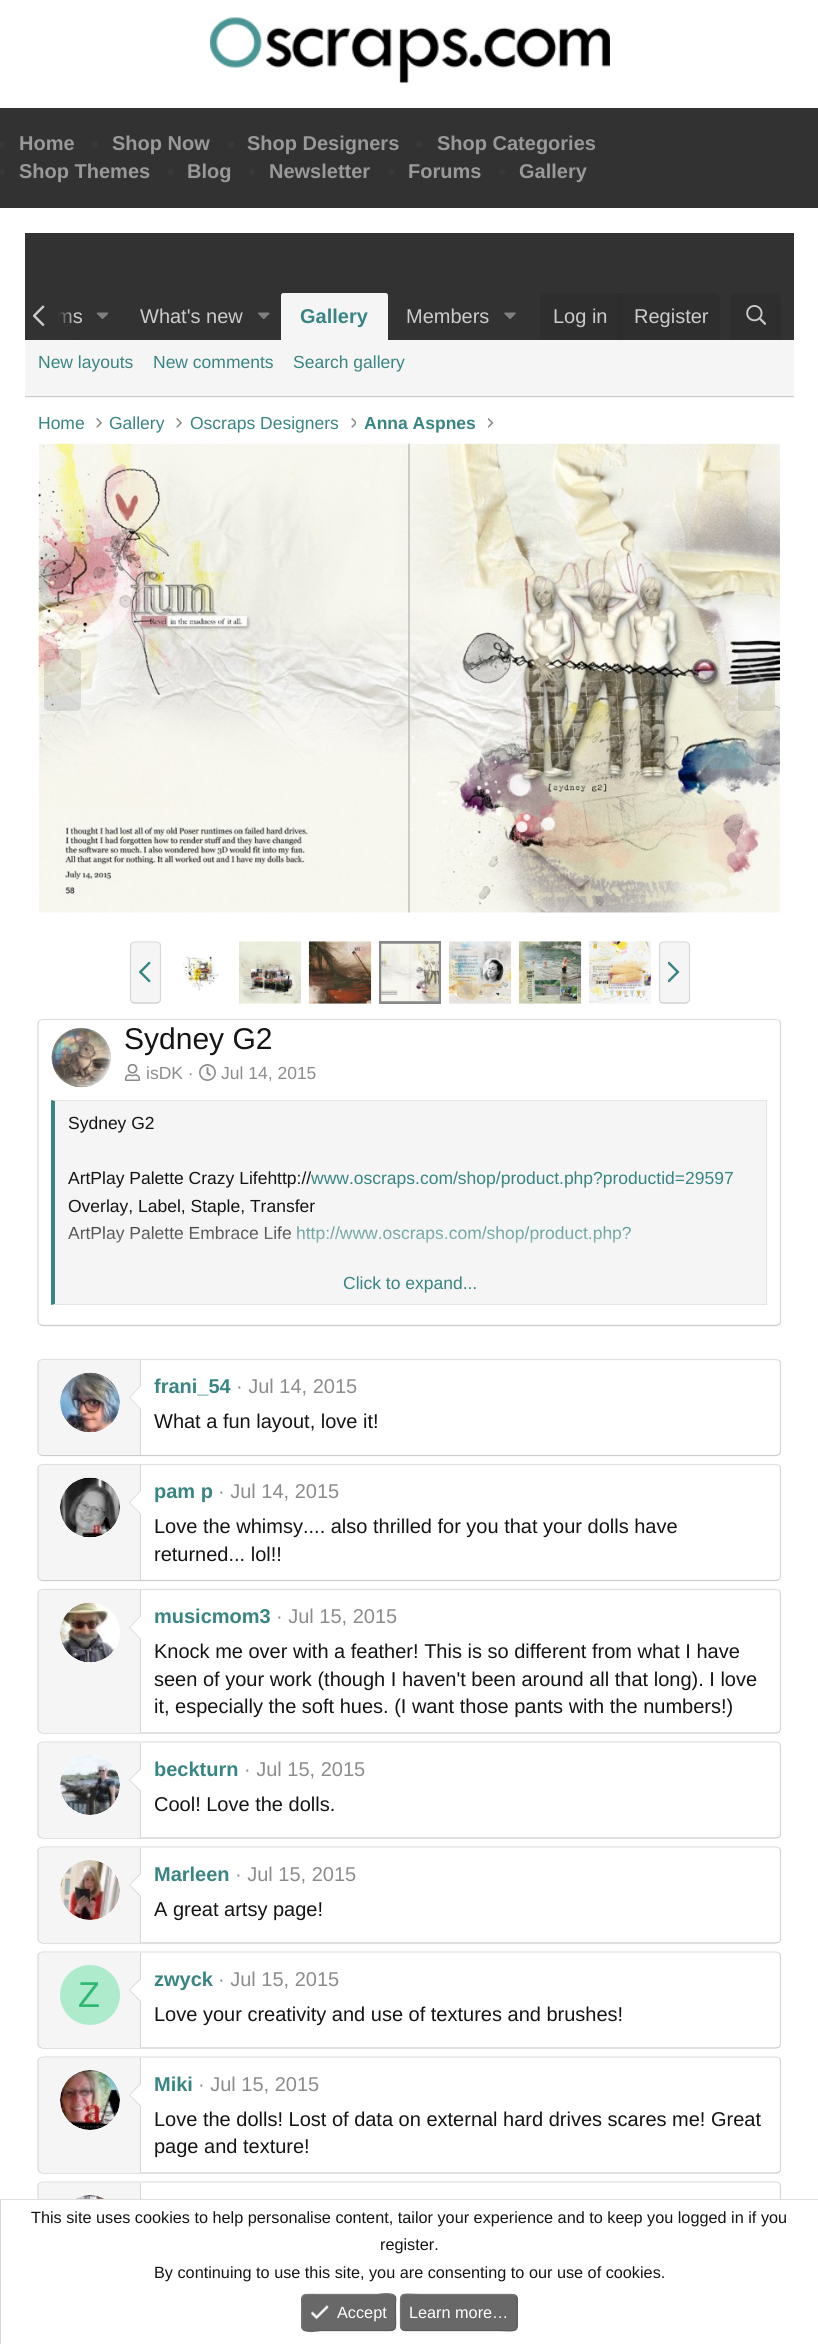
import math
import cairo

surface = cairo.ImageSurface(cairo.Format.RGB24, 818, 2344)
ctx = cairo.Context(surface)
options = cairo.FontOptions()
options.set_hint_metrics(cairo.HintMetrics.OFF)
options.set_hint_style(cairo.HintStyle.NONE)
ctx.set_font_options(options)
ctx.set_miter_limit(4)


def ink(r, g, b):
    ctx.set_source_rgb(r / 255, g / 255, b / 255)


def write(x, y, s, family, size, color, bold=False, italic=False):
    ctx.select_font_face(family, cairo.FontSlant.ITALIC if italic else cairo.FontSlant.NORMAL, cairo.FontWeight.BOLD if bold else cairo.FontWeight.NORMAL)
    ctx.set_font_size(size)
    ink(*color)
    ctx.move_to(x, y)
    ctx.show_text(s)


def block(x, y, w, h, *color):
    ink(*color)
    ctx.rectangle(x, y, w, h)
    ctx.fill()


def round_path(x, y, w, h, r):
    ctx.new_sub_path()
    for i, (u, v) in enumerate([(x + w - r, y + h - r), (x + r, y + h - r), (x + r, y + r), (x + w - r, y + r)]):
        ctx.arc(u, v, r, i * math.pi / 2, (i + 1) * math.pi / 2)
    ctx.close_path()


def paste(path, x, y, w, h):
    ctx.save()
    ctx.set_source_surface(cairo.ImageSurface.create_from_png(path), x, y)
    ctx.rectangle(x, y, w, h)
    ctx.fill()
    ctx.restore()


s1 = dict(family="Liberation Sans", size=20, color=(153, 153, 153), bold=True)
s2 = dict(family="Liberation Sans", size=20, color=(204, 204, 204))
s3 = dict(family="Liberation Sans", size=20, color=(56, 133, 131), bold=True)
s4 = dict(family="Liberation Sans", size=17.5, color=(56, 133, 131))
s5 = dict(family="Liberation Sans", size=17.5, color=(56, 133, 131), bold=True)
s6 = dict(family="Liberation Sans", size=30, color=(20, 20, 20))
s7 = dict(family="Liberation Sans", size=17.5, color=(140, 140, 140))
s8 = dict(family="Liberation Sans", size=17.5, color=(20, 20, 20))
s9 = dict(family="Liberation Sans", size=20, color=(140, 140, 140))
s10 = dict(family="Liberation Sans", size=20, color=(20, 20, 20))
s11 = dict(family="Liberation Sans", size=36, color=(46, 184, 115))
s12 = dict(family="Liberation Sans", size=16.25, color=(20, 20, 20))
s13 = dict(family="Liberation Sans", size=16.25, color=(255, 255, 255))

ink(255, 255, 255)
ctx.paint()
paste("pic1.png", 210, 17, 400, 66)
block(0, 108, 818, 100, 50, 50, 50)
ink(56, 56, 56)
round_path(-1, 141, 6, 7, 3)
ctx.fill()
write(19, 150, "Home", **s1)
ink(56, 56, 56)
ctx.new_path()
ctx.arc(94.5, 144.5, 3.5, 0, 2 * math.pi)
ctx.fill()
write(112, 150, "Shop Now", **s1)
ink(56, 56, 56)
round_path(228, 141, 6, 7, 3)
ctx.fill()
write(247, 150, "Shop Designers", **s1)
ink(56, 56, 56)
ctx.new_path()
ctx.arc(419.5, 144.5, 3.5, 0, 2 * math.pi)
ctx.fill()
write(437, 150, "Shop Categories", **s1)
ink(56, 56, 56)
ctx.new_path()
ctx.arc(2, 172, 3, 0, 2 * math.pi)
ctx.fill()
write(19, 178, "Shop Themes", **s1)
ink(56, 56, 56)
ctx.new_path()
ctx.arc(171, 172, 3, 0, 2 * math.pi)
ctx.fill()
write(187, 178, "Blog", **s1)
ink(56, 56, 56)
ctx.new_path()
ctx.arc(252, 172, 3, 0, 2 * math.pi)
ctx.fill()
write(269, 178, "Newsletter", **s1)
ink(56, 56, 56)
ctx.new_path()
ctx.arc(391, 172, 3, 0, 2 * math.pi)
ctx.fill()
write(408, 178, "Forums", **s1)
ink(56, 56, 56)
ctx.new_path()
ctx.arc(502, 172, 3, 0, 2 * math.pi)
ctx.fill()
write(519, 178, "Gallery", **s1)
block(25, 233, 769, 60, 50, 50, 50)
block(58, 293, 736, 47, 50, 50, 50)
write(56, 323, "ms", **s2)
gradient = cairo.LinearGradient(25, 316, 75, 316)
gradient.add_color_stop_rgba(0.66, 0.196, 0.196, 0.196, 1)
gradient.add_color_stop_rgba(1, 0.196, 0.196, 0.196, 0)
ctx.set_source(gradient)
ctx.rectangle(25, 293, 50, 47)
ctx.fill()
paste("pic2.png", 33, 305, 12, 21)
paste("pic3.png", 96, 312, 13, 7)
write(140, 323, "What's new", **s2)
paste("pic4.png", 258, 312, 12, 7)
ink(245, 245, 245)
ctx.new_path()
ctx.move_to(283.5, 293)
ctx.line_to(385.5, 293)
ctx.curve_to(387, 293, 388, 294, 388, 295.5)
ctx.line_to(388, 340)
ctx.line_to(281, 340)
ctx.line_to(281, 295.5)
ctx.curve_to(281, 294, 282, 293, 283.5, 293)
ctx.close_path()
ctx.fill()
write(300, 323, "Gallery", **s3)
write(406, 323, "Members", **s2)
paste("pic5.png", 504, 312, 12, 7)
ink(46, 46, 46)
ctx.new_path()
ctx.move_to(545, 293)
ctx.line_to(715, 293)
ctx.curve_to(718, 293, 720, 295, 720, 298)
ctx.line_to(720, 340)
ctx.line_to(540, 340)
ctx.line_to(540, 298)
ctx.curve_to(540, 295, 542, 293, 545, 293)
ctx.close_path()
ctx.fill()
write(553, 323, "Log in", **s2)
block(620, 293, 1, 47, 42, 42, 42)
write(634, 323, "Register", **s2)
ink(46, 46, 46)
ctx.new_path()
ctx.move_to(735, 293)
ctx.line_to(776, 293)
ctx.curve_to(779, 293, 781, 295, 781, 298)
ctx.line_to(781, 340)
ctx.line_to(730, 340)
ctx.line_to(730, 298)
ctx.curve_to(730, 295, 732, 293, 735, 293)
ctx.close_path()
ctx.fill()
paste("pic6.png", 746, 305, 20, 20)
block(25, 340, 769, 58, 245, 245, 245)
block(25, 396, 769, 1, 204, 204, 204)
write(38, 368, "New layouts", **s4)
write(153, 368, "New comments", **s4)
write(293, 368, "Search gallery", **s4)
write(38, 429, "Home", **s4)
paste("pic7.png", 96, 418, 6, 10)
write(109, 429, "Gallery", **s4)
paste("pic7.png", 176, 418, 6, 10)
write(190, 429, "Oscraps Designers", **s4)
paste("pic8.png", 351, 418, 5, 10)
write(364, 429, "Anna Aspnes", **s5)
paste("pic9.png", 488, 418, 6, 10)
paste("pic10.png", 38, 443, 742, 470)
ctx.set_source_rgba(0.31, 0.31, 0.31, 0.14)
round_path(44, 649, 37, 62, 5)
ctx.fill()
paste("pic11.png", 54, 665, 17, 30)
round_path(738, 649, 37, 62, 5)
ctx.fill()
paste("pic12.png", 748, 665, 17, 30)
ink(245, 245, 245)
round_path(130, 941, 31, 63, 5)
ctx.fill()
ctx.new_path()
ctx.move_to(132, 943)
ctx.curve_to(132.5, 942.5, 134, 942, 135, 942)
ctx.line_to(156, 942)
ctx.curve_to(157.5, 942, 158.5, 942.5, 159.5, 943)
ink(224, 224, 224)
ctx.set_line_width(1.2)
ctx.stroke()
ctx.new_path()
ctx.move_to(159.5, 943)
ctx.curve_to(160, 944, 160.5, 945, 160.5, 946)
ctx.line_to(160.5, 999)
ctx.curve_to(160.5, 1000, 160, 1001, 159.5, 1002)
ink(214, 214, 214)
ctx.stroke()
ctx.new_path()
ctx.move_to(159.5, 1002)
ctx.curve_to(158.5, 1002.5, 157.5, 1003, 156, 1003)
ctx.line_to(135, 1003)
ctx.curve_to(134, 1003, 132.5, 1002.5, 132, 1002)
ink(204, 204, 204)
ctx.stroke()
ctx.new_path()
ctx.move_to(132, 1002)
ctx.curve_to(131, 1001, 130.5, 1000, 130.5, 999)
ctx.line_to(130.5, 946)
ctx.curve_to(130.5, 945, 131, 944, 132, 943)
ink(214, 214, 214)
ctx.stroke()
paste("pic13.png", 139, 961, 12, 22)
paste("pic14.png", 182, 956, 37, 35)
paste("pic15.png", 239, 941, 62, 63)
paste("pic16.png", 308, 941, 64, 63)
ctx.rectangle(380.5, 942.5, 59, 60)
ink(136, 136, 136)
ctx.set_line_width(3)
ctx.stroke()
paste("pic17.png", 381, 943, 58, 59)
paste("pic18.png", 448, 941, 64, 63)
paste("pic19.png", 518, 941, 64, 63)
paste("pic20.png", 588, 941, 64, 63)
ink(245, 245, 245)
round_path(659, 941, 31, 63, 5)
ctx.fill()
ctx.new_path()
ctx.move_to(660.5, 943)
ctx.curve_to(661.5, 942.5, 662.5, 942, 664, 942)
ctx.line_to(685, 942)
ctx.curve_to(686, 942, 687.5, 942.5, 688, 943)
ink(224, 224, 224)
ctx.set_line_width(1.2)
ctx.stroke()
ctx.new_path()
ctx.move_to(688, 943)
ctx.curve_to(689, 944, 689.5, 945, 689.5, 946)
ctx.line_to(689.5, 999)
ctx.curve_to(689.5, 1000, 689, 1001, 688, 1002)
ink(214, 214, 214)
ctx.stroke()
ctx.new_path()
ctx.move_to(688, 1002)
ctx.curve_to(687.5, 1002.5, 686, 1003, 685, 1003)
ctx.line_to(664, 1003)
ctx.curve_to(662.5, 1003, 661.5, 1002.5, 660.5, 1002)
ink(204, 204, 204)
ctx.stroke()
ctx.new_path()
ctx.move_to(660.5, 1002)
ctx.curve_to(660, 1001, 659.5, 1000, 659.5, 999)
ctx.line_to(659.5, 946)
ctx.curve_to(659.5, 945, 660, 944, 660.5, 943)
ink(214, 214, 214)
ctx.stroke()
paste("pic21.png", 668, 961, 12, 22)
ctx.new_path()
ctx.move_to(39.5, 1020.5)
ctx.line_to(42.5, 1019.5)
ctx.line_to(776, 1019.5)
ctx.line_to(779.5, 1020.5)
ink(224, 224, 224)
ctx.stroke()
ctx.new_path()
ctx.move_to(779.5, 1020.5)
ctx.curve_to(780, 1021.5, 780.5, 1022.5, 780.5, 1024)
ctx.line_to(780.5, 1321)
ctx.curve_to(780.5, 1322.5, 780, 1323.5, 779.5, 1324.5)
ink(214, 214, 214)
ctx.stroke()
ctx.new_path()
ctx.move_to(779.5, 1324.5)
ctx.line_to(776, 1325.5)
ctx.line_to(42.5, 1325.5)
ctx.line_to(39.5, 1324.5)
ink(204, 204, 204)
ctx.stroke()
ctx.new_path()
ctx.move_to(39.5, 1324.5)
ctx.curve_to(38.5, 1323.5, 38, 1322.5, 38, 1321)
ctx.line_to(38, 1024)
ctx.curve_to(38, 1022.5, 38.5, 1021.5, 39.5, 1020.5)
ink(214, 214, 214)
ctx.stroke()
paste("pic22.png", 51, 1027, 60, 61)
write(124, 1049, "Sydney G2", **s6)
paste("pic23.png", 124, 1064, 17, 17)
write(146, 1079, "isDK ·", **s7)
paste("pic24.png", 199, 1064, 17, 17)
write(221, 1079, "Jul 14, 2015", **s7)
block(55, 1101, 711, 184, 245, 245, 245)
ink(229, 229, 229)
ctx.new_path()
ctx.move_to(51, 1100)
ctx.line_to(768, 1100)
ctx.line_to(766, 1101)
ctx.line_to(55, 1101)
ctx.close_path()
ctx.fill()
block(766, 1100, 1, 205, 229, 229, 229)
ctx.new_path()
ctx.move_to(768, 1305)
ctx.line_to(51, 1305)
ctx.line_to(55, 1304)
ctx.line_to(766, 1304)
ctx.close_path()
ctx.fill()
ink(56, 133, 131)
ctx.new_path()
ctx.move_to(51, 1305)
ctx.line_to(51, 1100)
ctx.line_to(55, 1101)
ctx.line_to(55, 1304)
ctx.close_path()
ctx.fill()
write(68, 1129, "Sydney G2", **s8)
write(68, 1184, "ArtPlay Palette Crazy Lifehttp://", **s8)
write(311, 1184, "www.oscraps.com/shop/product.php?productid=29597", **s4)
write(68, 1212, "Overlay, Label, Staple, Transfer", **s8)
write(68, 1239, "ArtPlay Palette Embrace Life", **s8)
write(296, 1239, "http://www.oscraps.com/shop/product.php?", **s4)
gradient = cairo.LinearGradient(411, 1210, 411, 1304)
gradient.add_color_stop_rgba(0, 0.961, 0.961, 0.961, 0)
gradient.add_color_stop_rgba(0.8, 0.961, 0.961, 0.961, 1)
ctx.set_source(gradient)
ctx.rectangle(55, 1212, 711, 92)
ctx.fill()
write(343, 1289, "Click to expand...", **s4)
ctx.new_path()
ctx.move_to(39.5, 1360.5)
ctx.line_to(42.5, 1359.5)
ctx.line_to(776, 1359.5)
ctx.line_to(779.5, 1360.5)
ink(224, 224, 224)
ctx.stroke()
ctx.new_path()
ctx.move_to(779.5, 1360.5)
ctx.curve_to(780, 1361.5, 780.5, 1362.5, 780.5, 1364)
ctx.line_to(780.5, 1451)
ctx.curve_to(780.5, 1452.5, 780, 1453.5, 779.5, 1454.5)
ink(214, 214, 214)
ctx.stroke()
ctx.new_path()
ctx.move_to(779.5, 1454.5)
ctx.line_to(776, 1455.5)
ctx.line_to(42.5, 1455.5)
ctx.line_to(39.5, 1454.5)
ink(204, 204, 204)
ctx.stroke()
ctx.new_path()
ctx.move_to(39.5, 1454.5)
ctx.curve_to(38.5, 1453.5, 38, 1452.5, 38, 1451)
ctx.line_to(38, 1364)
ctx.curve_to(38, 1362.5, 38.5, 1361.5, 39.5, 1360.5)
ink(214, 214, 214)
ctx.stroke()
ink(245, 245, 245)
ctx.new_path()
ctx.move_to(43, 1360)
ctx.line_to(141, 1360)
ctx.line_to(141, 1455)
ctx.line_to(43, 1455)
ctx.curve_to(41, 1455, 39, 1453, 39, 1451)
ctx.line_to(39, 1364)
ctx.curve_to(39, 1362, 41, 1360, 43, 1360)
ctx.close_path()
ctx.fill()
block(140, 1360, 1, 95, 214, 214, 214)
ink(255, 255, 255)
ctx.arc(90, 1403, 30, 0, 2 * math.pi)
ctx.fill()
paste("pic25.png", 60, 1372, 60, 61)
ink(214, 214, 214)
ctx.new_path()
ctx.move_to(141, 1385)
ctx.line_to(141, 1410)
ctx.line_to(129, 1397.5)
ctx.close_path()
ctx.fill()
ink(255, 255, 255)
ctx.new_path()
ctx.move_to(141, 1386)
ctx.line_to(141, 1409)
ctx.line_to(130, 1397.5)
ctx.close_path()
ctx.fill()
write(154, 1393, "frani_54", **s3)
write(236, 1393, "· Jul 14, 2015", **s9)
write(154, 1428, "What a fun layout, love it!", **s10)
ctx.new_path()
ctx.move_to(39.5, 1465.5)
ctx.line_to(42.5, 1464.5)
ctx.line_to(776, 1464.5)
ctx.line_to(779.5, 1465.5)
ink(224, 224, 224)
ctx.stroke()
ctx.new_path()
ctx.move_to(779.5, 1465.5)
ctx.curve_to(780, 1466.5, 780.5, 1467.5, 780.5, 1469)
ctx.line_to(780.5, 1576)
ctx.curve_to(780.5, 1577.5, 780, 1578.5, 779.5, 1579.5)
ink(214, 214, 214)
ctx.stroke()
ctx.new_path()
ctx.move_to(779.5, 1579.5)
ctx.line_to(776, 1580.5)
ctx.line_to(42.5, 1580.5)
ctx.line_to(39.5, 1579.5)
ink(204, 204, 204)
ctx.stroke()
ctx.new_path()
ctx.move_to(39.5, 1579.5)
ctx.curve_to(38.5, 1578.5, 38, 1577.5, 38, 1576)
ctx.line_to(38, 1469)
ctx.curve_to(38, 1467.5, 38.5, 1466.5, 39.5, 1465.5)
ink(214, 214, 214)
ctx.stroke()
ink(245, 245, 245)
ctx.new_path()
ctx.move_to(43, 1465)
ctx.line_to(141, 1465)
ctx.line_to(141, 1580)
ctx.line_to(43, 1580)
ctx.curve_to(41, 1580, 39, 1578, 39, 1576)
ctx.line_to(39, 1469)
ctx.curve_to(39, 1467, 41, 1465, 43, 1465)
ctx.close_path()
ctx.fill()
block(140, 1465, 1, 115, 214, 214, 214)
ink(255, 255, 255)
ctx.arc(90, 1508, 30, 0, 2 * math.pi)
ctx.fill()
paste("pic26.png", 60, 1477, 60, 61)
ink(214, 214, 214)
ctx.new_path()
ctx.move_to(141, 1490)
ctx.line_to(141, 1515)
ctx.line_to(129, 1502.5)
ctx.close_path()
ctx.fill()
ink(255, 255, 255)
ctx.new_path()
ctx.move_to(141, 1491)
ctx.line_to(141, 1514)
ctx.line_to(130, 1502.5)
ctx.close_path()
ctx.fill()
write(154, 1498, "pam p", **s3)
write(218, 1498, "· Jul 14, 2015", **s9)
write(154, 1533, "Love the whimsy.... also thrilled for you that your dolls have", **s10)
write(154, 1561, "returned... lol!!", **s10)
ctx.new_path()
ctx.move_to(39.5, 1590.5)
ctx.line_to(42.5, 1589.5)
ctx.line_to(776, 1589.5)
ctx.line_to(779.5, 1590.5)
ink(224, 224, 224)
ctx.stroke()
ctx.new_path()
ctx.move_to(779.5, 1590.5)
ctx.line_to(780.5, 1593.5)
ctx.line_to(780.5, 1706)
ctx.line_to(780.5, 1729)
ctx.line_to(779.5, 1732)
ink(214, 214, 214)
ctx.stroke()
ctx.new_path()
ctx.move_to(779.5, 1732)
ctx.line_to(776, 1733)
ctx.line_to(42.5, 1733)
ctx.line_to(39.5, 1732)
ink(204, 204, 204)
ctx.stroke()
ctx.new_path()
ctx.move_to(39.5, 1732)
ctx.line_to(38, 1729)
ctx.line_to(38, 1593.5)
ctx.line_to(39.5, 1590.5)
ink(214, 214, 214)
ctx.stroke()
ink(245, 245, 245)
ctx.new_path()
ctx.move_to(43, 1590)
ctx.line_to(141, 1590)
ctx.line_to(141, 1733)
ctx.line_to(43, 1733)
ctx.curve_to(41, 1733, 39, 1731, 39, 1729)
ctx.line_to(39, 1594)
ctx.curve_to(39, 1592, 41, 1590, 43, 1590)
ctx.close_path()
ctx.fill()
block(140, 1590, 1, 143, 214, 214, 214)
ink(255, 255, 255)
ctx.arc(90, 1633, 30, 0, 2 * math.pi)
ctx.fill()
paste("pic27.png", 60, 1602, 56, 61)
ink(214, 214, 214)
ctx.new_path()
ctx.move_to(141, 1615)
ctx.line_to(141, 1640)
ctx.line_to(129, 1627.5)
ctx.close_path()
ctx.fill()
ink(255, 255, 255)
ctx.new_path()
ctx.move_to(141, 1616)
ctx.line_to(141, 1639)
ctx.line_to(130, 1627.5)
ctx.close_path()
ctx.fill()
write(154, 1623, "musicmom3", **s3)
write(276, 1623, "· Jul 15, 2015", **s9)
write(154, 1658, "Knock me over with a feather! This is so different from what I have", **s10)
write(154, 1686, "seen of your work (though I haven't been around all that long). I love", **s10)
write(154, 1713, "it, especially the soft hues. (I want those pants with the numbers!)", **s10)
ctx.new_path()
ctx.move_to(39.5, 1743)
ctx.line_to(42.5, 1742)
ctx.line_to(776, 1742)
ctx.line_to(779.5, 1743)
ink(224, 224, 224)
ctx.stroke()
ctx.new_path()
ctx.move_to(779.5, 1743)
ctx.curve_to(780, 1744, 780.5, 1745, 780.5, 1746)
ctx.line_to(780.5, 1834)
ctx.curve_to(780.5, 1835, 780, 1836, 779.5, 1837)
ink(214, 214, 214)
ctx.stroke()
ctx.new_path()
ctx.move_to(779.5, 1837)
ctx.line_to(776, 1838)
ctx.line_to(42.5, 1838)
ctx.line_to(39.5, 1837)
ink(204, 204, 204)
ctx.stroke()
ctx.new_path()
ctx.move_to(39.5, 1837)
ctx.curve_to(38.5, 1836, 38, 1835, 38, 1834)
ctx.line_to(38, 1746)
ctx.curve_to(38, 1745, 38.5, 1744, 39.5, 1743)
ink(214, 214, 214)
ctx.stroke()
ink(245, 245, 245)
ctx.new_path()
ctx.move_to(43, 1743)
ctx.line_to(141, 1743)
ctx.line_to(141, 1838)
ctx.line_to(43, 1838)
ctx.curve_to(41, 1838, 39, 1836, 39, 1834)
ctx.line_to(39, 1747)
ctx.curve_to(39, 1745, 41, 1743, 43, 1743)
ctx.close_path()
ctx.fill()
block(140, 1743, 1, 95, 214, 214, 214)
ink(255, 255, 255)
ctx.arc(90, 1785, 30, 0, 2 * math.pi)
ctx.fill()
paste("pic28.png", 60, 1755, 60, 60)
ink(214, 214, 214)
ctx.new_path()
ctx.move_to(141, 1767.5)
ctx.line_to(141, 1792.5)
ctx.line_to(129, 1780)
ctx.close_path()
ctx.fill()
ink(255, 255, 255)
ctx.new_path()
ctx.move_to(141, 1769)
ctx.line_to(141, 1791)
ctx.line_to(130, 1780)
ctx.close_path()
ctx.fill()
write(154, 1776, "beckturn", **s3)
write(244, 1776, "· Jul 15, 2015", **s9)
write(154, 1811, "Cool! Love the dolls.", **s10)
ctx.new_path()
ctx.move_to(39.5, 1848)
ctx.line_to(42.5, 1847)
ctx.line_to(776, 1847)
ctx.line_to(779.5, 1848)
ink(224, 224, 224)
ctx.stroke()
ctx.new_path()
ctx.move_to(779.5, 1848)
ctx.curve_to(780, 1849, 780.5, 1850, 780.5, 1851)
ctx.line_to(780.5, 1939)
ctx.curve_to(780.5, 1940, 780, 1941, 779.5, 1942)
ink(214, 214, 214)
ctx.stroke()
ctx.new_path()
ctx.move_to(779.5, 1942)
ctx.line_to(776, 1943)
ctx.line_to(42.5, 1943)
ctx.line_to(39.5, 1942)
ink(204, 204, 204)
ctx.stroke()
ctx.new_path()
ctx.move_to(39.5, 1942)
ctx.curve_to(38.5, 1941, 38, 1940, 38, 1939)
ctx.line_to(38, 1851)
ctx.curve_to(38, 1850, 38.5, 1849, 39.5, 1848)
ink(214, 214, 214)
ctx.stroke()
ink(245, 245, 245)
ctx.new_path()
ctx.move_to(43, 1848)
ctx.line_to(141, 1848)
ctx.line_to(141, 1943)
ctx.line_to(43, 1943)
ctx.curve_to(41, 1943, 39, 1941, 39, 1939)
ctx.line_to(39, 1852)
ctx.curve_to(39, 1850, 41, 1848, 43, 1848)
ctx.close_path()
ctx.fill()
block(140, 1848, 1, 95, 214, 214, 214)
ink(255, 255, 255)
ctx.arc(90, 1890, 30, 0, 2 * math.pi)
ctx.fill()
paste("pic29.png", 60, 1860, 60, 60)
ink(214, 214, 214)
ctx.new_path()
ctx.move_to(141, 1872.5)
ctx.line_to(141, 1897.5)
ctx.line_to(129, 1885)
ctx.close_path()
ctx.fill()
ink(255, 255, 255)
ctx.new_path()
ctx.move_to(141, 1874)
ctx.line_to(141, 1896)
ctx.line_to(130, 1885)
ctx.close_path()
ctx.fill()
write(154, 1881, "Marleen", **s3)
write(235, 1881, "· Jul 15, 2015", **s9)
write(154, 1916, "A great artsy page!", **s10)
ctx.new_path()
ctx.move_to(39.5, 1953)
ctx.line_to(42.5, 1952)
ctx.line_to(776, 1952)
ctx.line_to(779.5, 1953)
ink(224, 224, 224)
ctx.stroke()
ctx.new_path()
ctx.move_to(779.5, 1953)
ctx.curve_to(780, 1954, 780.5, 1955, 780.5, 1956)
ctx.line_to(780.5, 2044)
ctx.curve_to(780.5, 2045, 780, 2046, 779.5, 2047)
ink(214, 214, 214)
ctx.stroke()
ctx.new_path()
ctx.move_to(779.5, 2047)
ctx.line_to(776, 2048)
ctx.line_to(42.5, 2048)
ctx.line_to(39.5, 2047)
ink(204, 204, 204)
ctx.stroke()
ctx.new_path()
ctx.move_to(39.5, 2047)
ctx.curve_to(38.5, 2046, 38, 2045, 38, 2044)
ctx.line_to(38, 1956)
ctx.curve_to(38, 1955, 38.5, 1954, 39.5, 1953)
ink(214, 214, 214)
ctx.stroke()
ink(245, 245, 245)
ctx.new_path()
ctx.move_to(43, 1953)
ctx.line_to(141, 1953)
ctx.line_to(141, 2048)
ctx.line_to(43, 2048)
ctx.curve_to(41, 2048, 39, 2046, 39, 2044)
ctx.line_to(39, 1957)
ctx.curve_to(39, 1955, 41, 1953, 43, 1953)
ctx.close_path()
ctx.fill()
block(140, 1953, 1, 95, 214, 214, 214)
ink(173, 235, 204)
ctx.arc(90, 1995, 30, 0, 2 * math.pi)
ctx.fill()
write(78, 2007, "Z", **s11)
ink(214, 214, 214)
ctx.new_path()
ctx.move_to(141, 1977.5)
ctx.line_to(141, 2002.5)
ctx.line_to(129, 1990)
ctx.close_path()
ctx.fill()
ink(255, 255, 255)
ctx.new_path()
ctx.move_to(141, 1979)
ctx.line_to(141, 2001)
ctx.line_to(130, 1990)
ctx.close_path()
ctx.fill()
write(154, 1986, "zwyck", **s3)
write(218, 1986, "· Jul 15, 2015", **s9)
write(154, 2021, "Love your creativity and use of textures and brushes!", **s10)
ctx.new_path()
ctx.move_to(39.5, 2058)
ctx.line_to(42.5, 2057)
ctx.line_to(776, 2057)
ctx.line_to(779.5, 2058)
ink(224, 224, 224)
ctx.stroke()
ctx.new_path()
ctx.move_to(779.5, 2058)
ctx.curve_to(780, 2059, 780.5, 2060, 780.5, 2061)
ctx.line_to(780.5, 2169)
ctx.curve_to(780.5, 2170, 780, 2171, 779.5, 2172)
ink(214, 214, 214)
ctx.stroke()
ctx.new_path()
ctx.move_to(779.5, 2172)
ctx.line_to(776, 2173)
ctx.line_to(42.5, 2173)
ctx.line_to(39.5, 2172)
ink(204, 204, 204)
ctx.stroke()
ctx.new_path()
ctx.move_to(39.5, 2172)
ctx.curve_to(38.5, 2171, 38, 2170, 38, 2169)
ctx.line_to(38, 2061)
ctx.curve_to(38, 2060, 38.5, 2059, 39.5, 2058)
ink(214, 214, 214)
ctx.stroke()
ink(245, 245, 245)
ctx.new_path()
ctx.move_to(43, 2058)
ctx.line_to(141, 2058)
ctx.line_to(141, 2173)
ctx.line_to(43, 2173)
ctx.curve_to(41, 2173, 39, 2171, 39, 2169)
ctx.line_to(39, 2062)
ctx.curve_to(39, 2060, 41, 2058, 43, 2058)
ctx.close_path()
ctx.fill()
block(140, 2058, 1, 115, 214, 214, 214)
ink(255, 255, 255)
ctx.arc(90, 2100, 30, 0, 2 * math.pi)
ctx.fill()
paste("pic30.png", 60, 2070, 60, 60)
ink(214, 214, 214)
ctx.new_path()
ctx.move_to(141, 2082.5)
ctx.line_to(141, 2107.5)
ctx.line_to(129, 2095)
ctx.close_path()
ctx.fill()
ink(255, 255, 255)
ctx.new_path()
ctx.move_to(141, 2084)
ctx.line_to(141, 2106)
ctx.line_to(130, 2095)
ctx.close_path()
ctx.fill()
write(154, 2091, "Miki", **s3)
write(198, 2091, "· Jul 15, 2015", **s9)
write(154, 2126, "Love the dolls! Lost of data on external hard drives scares me! Great", **s10)
write(154, 2153, "page and texture!", **s10)
ctx.new_path()
ctx.move_to(39.5, 2183)
ctx.line_to(42.5, 2182)
ctx.line_to(776, 2182)
ctx.line_to(779.5, 2183)
ink(224, 224, 224)
ctx.stroke()
ctx.new_path()
ctx.move_to(779.5, 2183)
ctx.curve_to(780, 2184, 780.5, 2185, 780.5, 2186)
ctx.line_to(780.5, 2294)
ctx.curve_to(780.5, 2295, 780, 2296, 779.5, 2297)
ink(214, 214, 214)
ctx.stroke()
ctx.new_path()
ctx.move_to(39.5, 2297)
ctx.curve_to(38.5, 2296, 38, 2295, 38, 2294)
ctx.line_to(38, 2186)
ctx.curve_to(38, 2185, 38.5, 2184, 39.5, 2183)
ctx.stroke()
ink(245, 245, 245)
ctx.new_path()
ctx.move_to(43, 2183)
ctx.line_to(141, 2183)
ctx.line_to(141, 2298)
ctx.line_to(43, 2298)
ctx.curve_to(41, 2298, 39, 2296, 39, 2294)
ctx.line_to(39, 2187)
ctx.curve_to(39, 2185, 41, 2183, 43, 2183)
ctx.close_path()
ctx.fill()
block(140, 2183, 1, 16, 214, 214, 214)
ink(255, 255, 255)
ctx.arc(90, 2225, 30, 0, 2 * math.pi)
ctx.fill()
paste("pic31.png", 76, 2195, 29, 4)
block(37, 2200, 745, 98, 255, 255, 255)
block(0, 2199, 818, 1, 224, 224, 224)
block(0, 2199, 1, 145, 214, 214, 214)
write(31, 2223, "This site uses cookies to help personalise content, tailor your experience and to keep you logged in if you", **s12)
write(380, 2250, "register.", **s12)
write(154, 2278, "By continuing to use this site, you are consenting to our use of cookies.", **s12)
ink(104, 104, 104)
round_path(301, 2294, 95, 37, 5)
ctx.fill()
ctx.new_path()
ctx.move_to(394.5, 2295.5)
ctx.curve_to(396.5, 2297.5, 395.5, 2301, 395.5, 2303.5)
ctx.line_to(395.5, 2312.5)
ctx.curve_to(395.5, 2333, 398.5, 2330.5, 377, 2330.5)
ctx.line_to(320.5, 2330.5)
ctx.curve_to(320, 2330.5, 306.5, 2333, 303, 2329.5)
ink(91, 91, 91)
ctx.stroke()
ctx.new_path()
ctx.move_to(303, 2329.5)
ctx.curve_to(301, 2327.5, 302, 2324, 302, 2321.5)
ctx.line_to(302, 2312.5)
ctx.curve_to(302, 2292, 299, 2294.5, 320.5, 2294.5)
ctx.line_to(377, 2294.5)
ctx.curve_to(377.5, 2294.5, 391, 2292, 394.5, 2295.5)
ink(117, 117, 117)
ctx.stroke()
paste("pic32.png", 311, 2305, 18, 15)
write(337, 2318, "Accept", **s13)
ink(104, 104, 104)
round_path(400, 2294, 118, 37, 5)
ctx.fill()
ctx.new_path()
ctx.move_to(515.5, 2295.5)
ctx.curve_to(517.5, 2297.5, 517, 2301, 517, 2303.5)
ctx.line_to(517, 2312.5)
ctx.curve_to(517, 2335, 519.5, 2330.5, 494.5, 2330.5)
ctx.line_to(405, 2330.5)
ctx.line_to(402, 2329.5)
ink(91, 91, 91)
ctx.stroke()
ctx.new_path()
ctx.move_to(402, 2329.5)
ctx.curve_to(400, 2327.5, 400.5, 2324, 400.5, 2321.5)
ctx.line_to(400.5, 2312.5)
ctx.curve_to(400.5, 2290, 398, 2294.5, 423, 2294.5)
ctx.line_to(512.5, 2294.5)
ctx.line_to(515.5, 2295.5)
ink(117, 117, 117)
ctx.stroke()
write(409, 2318, "Learn more…", **s13)
surface.write_to_png("screenshot.png")
